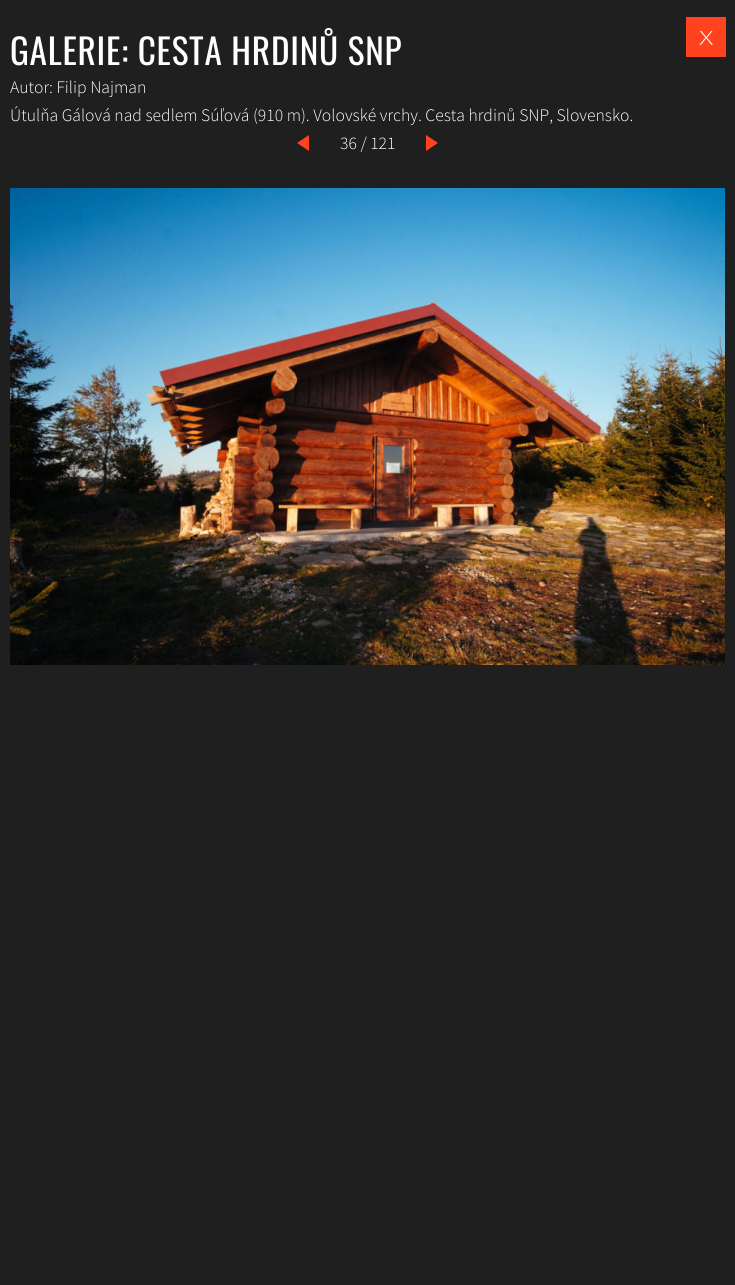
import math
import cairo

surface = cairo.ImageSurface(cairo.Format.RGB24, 735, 1285)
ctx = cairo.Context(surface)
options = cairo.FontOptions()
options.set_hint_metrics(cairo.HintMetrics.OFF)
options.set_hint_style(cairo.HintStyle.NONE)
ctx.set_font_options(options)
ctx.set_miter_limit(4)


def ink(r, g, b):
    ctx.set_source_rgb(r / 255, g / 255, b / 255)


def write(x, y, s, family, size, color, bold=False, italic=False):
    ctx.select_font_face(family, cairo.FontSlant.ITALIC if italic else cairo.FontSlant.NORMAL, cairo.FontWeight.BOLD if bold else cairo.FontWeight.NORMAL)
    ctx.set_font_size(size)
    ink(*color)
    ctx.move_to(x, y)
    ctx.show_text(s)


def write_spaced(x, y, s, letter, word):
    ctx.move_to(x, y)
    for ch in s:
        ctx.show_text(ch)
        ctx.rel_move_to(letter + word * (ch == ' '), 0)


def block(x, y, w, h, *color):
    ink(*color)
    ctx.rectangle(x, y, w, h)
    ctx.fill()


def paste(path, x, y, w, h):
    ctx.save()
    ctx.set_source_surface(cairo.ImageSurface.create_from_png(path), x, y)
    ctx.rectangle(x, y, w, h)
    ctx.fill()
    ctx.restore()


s1 = dict(family="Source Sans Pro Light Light", size=17.6, color=(255, 255, 255))

ink(31, 31, 31)
ctx.paint()
ctx.select_font_face("Oswald")
ctx.set_font_size(35.25)
ink(255, 255, 255)
write_spaced(10, 65, "GALERIE: CESTA HRDINŮ SNP", 0.75, 0)
write(10, 93, "Autor: Filip Najman", **s1)
write(10, 121, "Útulňa Gálová nad sedlem Súľová (910 m). Volovské vrchy. Cesta hrdinů SNP, Slovensko.", **s1)
ink(255, 67, 31)
ctx.new_path()
ctx.move_to(309, 135)
ctx.line_to(309, 151)
ctx.line_to(297, 143)
ctx.close_path()
ctx.fill()
write(340, 149, "36 / 121", **s1)
ink(255, 67, 31)
ctx.new_path()
ctx.move_to(426, 151)
ctx.line_to(426, 135)
ctx.line_to(438, 143)
ctx.close_path()
ctx.fill()
block(686, 17, 40, 40, 255, 67, 31)
paste("pic1.png", 699, 30, 14, 15)
paste("pic2.png", 10, 188, 715, 477)
surface.write_to_png("screenshot.png")
